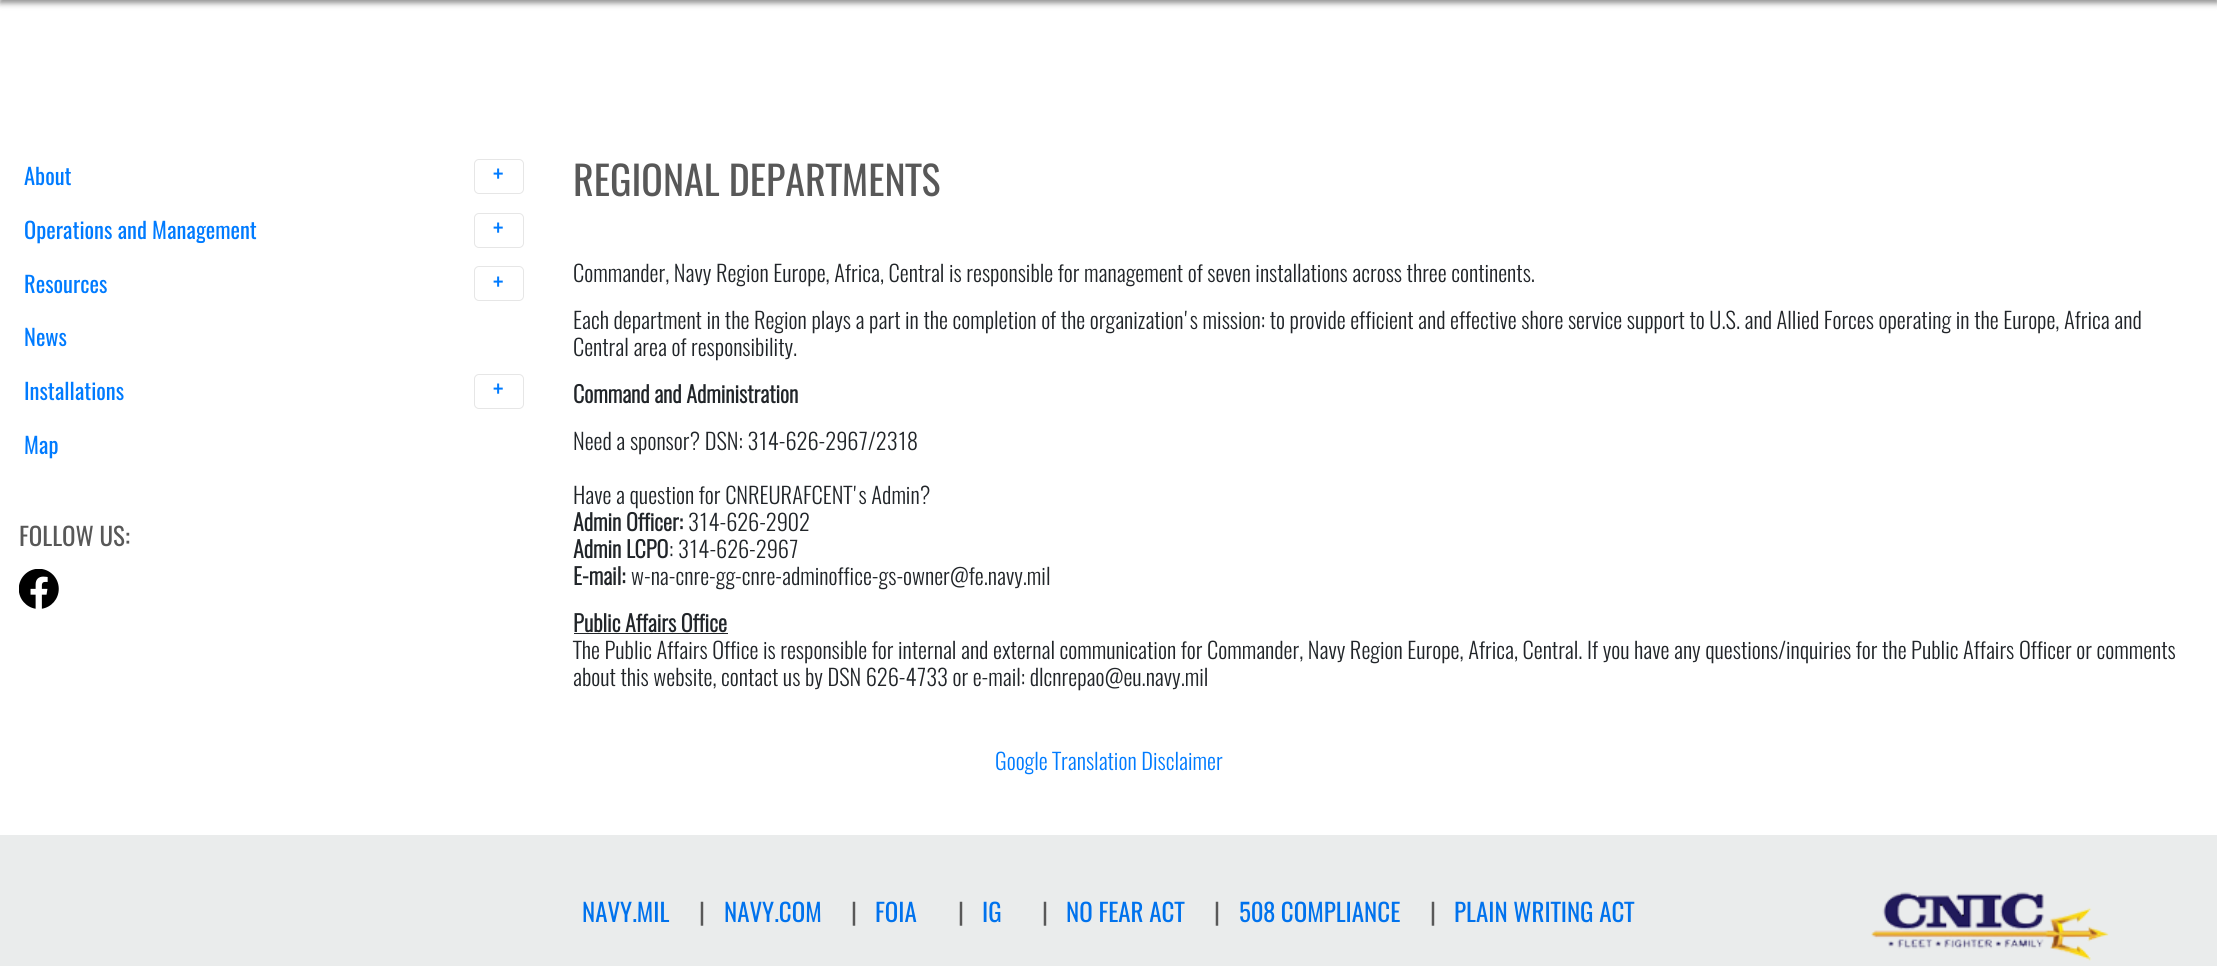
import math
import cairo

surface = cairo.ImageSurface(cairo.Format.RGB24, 2217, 966)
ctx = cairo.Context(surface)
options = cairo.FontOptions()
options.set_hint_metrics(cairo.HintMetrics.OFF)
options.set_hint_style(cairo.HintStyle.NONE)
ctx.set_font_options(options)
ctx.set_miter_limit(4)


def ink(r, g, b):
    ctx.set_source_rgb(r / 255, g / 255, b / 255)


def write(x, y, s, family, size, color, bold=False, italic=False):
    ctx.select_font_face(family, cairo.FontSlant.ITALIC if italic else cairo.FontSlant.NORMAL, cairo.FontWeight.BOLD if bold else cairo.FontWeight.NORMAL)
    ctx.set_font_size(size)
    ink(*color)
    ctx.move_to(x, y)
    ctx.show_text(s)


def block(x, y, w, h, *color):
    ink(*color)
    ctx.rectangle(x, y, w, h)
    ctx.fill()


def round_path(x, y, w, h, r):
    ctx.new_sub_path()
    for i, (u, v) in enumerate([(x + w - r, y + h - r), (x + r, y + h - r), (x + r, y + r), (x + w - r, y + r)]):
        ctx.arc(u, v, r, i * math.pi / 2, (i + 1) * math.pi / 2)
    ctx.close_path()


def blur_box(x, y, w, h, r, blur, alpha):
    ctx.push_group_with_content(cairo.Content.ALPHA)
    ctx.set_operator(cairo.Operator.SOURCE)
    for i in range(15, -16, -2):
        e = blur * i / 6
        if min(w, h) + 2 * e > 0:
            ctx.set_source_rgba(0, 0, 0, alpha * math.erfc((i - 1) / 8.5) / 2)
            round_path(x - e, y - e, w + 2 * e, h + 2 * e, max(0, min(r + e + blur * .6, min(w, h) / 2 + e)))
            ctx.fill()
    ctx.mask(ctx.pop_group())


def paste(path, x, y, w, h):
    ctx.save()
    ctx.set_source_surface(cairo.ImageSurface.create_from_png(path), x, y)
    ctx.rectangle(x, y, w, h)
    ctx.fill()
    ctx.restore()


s1 = dict(family="Oswald", size=22.5, color=(0, 123, 255))
s2 = dict(family="Oswald", size=25, color=(0, 123, 255))
s3 = dict(family="Oswald", size=25, color=(88, 88, 88))
s4 = dict(family="Oswald", size=40, color=(88, 88, 88))
s5 = dict(family="Oswald Light", size=22.5, color=(33, 37, 41))
s6 = dict(family="Oswald", size=22.5, color=(33, 37, 41), bold=True)
s7 = dict(family="Oswald Light", size=22.5, color=(0, 123, 255))
s8 = dict(family="Oswald", size=25, color=(0, 114, 237))

ink(255, 255, 255)
ctx.paint()
ink(26, 26, 26)
blur_box(0, -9, 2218, 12, 0, 3, 0.5)
write(24, 185, "About", **s1)
round_path(474.5, 159.5, 49, 34, 4.5)
ink(230, 230, 230)
ctx.set_line_width(1)
ctx.stroke()
write(493, 184, "+", **s2)
write(24, 239, "Operations and Management", **s1)
round_path(474.5, 213.5, 49, 34, 4.5)
ink(230, 230, 230)
ctx.stroke()
write(493, 238, "+", **s2)
write(24, 293, "Resources", **s1)
round_path(474.5, 266.5, 49, 34, 4.5)
ink(230, 230, 230)
ctx.stroke()
write(493, 292, "+", **s2)
write(24, 346, "News", **s1)
write(24, 400, "Installations", **s1)
round_path(474.5, 374.5, 49, 34, 4.5)
ink(230, 230, 230)
ctx.stroke()
write(493, 399, "+", **s2)
write(24, 454, "Map", **s1)
write(19, 546, "FOLLOW US:", **s3)
paste("pic1.png", 19, 569, 40, 40)
write(573, 196, "REGIONAL DEPARTMENTS", **s4)
write(573, 282, "Commander, Navy Region Europe, Africa, Central is responsible for management of seven installations across three continents.", **s5)
write(573, 329, "Each department in the Region plays a part in the completion of the organization's mission: to provide efficient and effective shore service support to U.S. and Allied Forces operating in the Europe, Africa and", **s5)
write(573, 356, "Central area of responsibility.", **s5)
write(573, 403, "Command and Administration", **s6)
write(573, 450, "Need a sponsor? DSN: 314-626-2967/2318", **s5)
write(573, 504, "Have a question for CNREURAFCENT's Admin?", **s5)
write(573, 531, "Admin Officer:", **s6)
write(688, 531, "314-626-2902", **s5)
write(573, 558, "Admin LCPO", **s6)
write(669, 558, ": 314-626-2967", **s5)
write(573, 585, "E-mail:", **s6)
write(631, 585, "w-na-cnre-gg-cnre-adminoffice-gs-owner@fe.navy.mil", **s5)
write(573, 632, "Public Affairs Office", **s6)
block(574, 633, 154, 1, 33, 37, 41)
write(573, 659, "The Public Affairs Office is responsible for internal and external communication for Commander, Navy Region Europe, Africa, Central. If you have any questions/inquiries for the Public Affairs Officer or comments", **s5)
write(573, 686, "about this website, contact us by DSN 626-4733 or e-mail: dlcnrepao@eu.navy.mil", **s5)
write(995, 770, "Google Translation Disclaimer", **s7)
block(0, 835, 2217, 131, 234, 236, 236)
write(582, 922, "NAVY.MIL", **s8)
write(699, 922, "|", **s3)
write(724, 922, "NAVY.COM", **s8)
write(851, 922, "|", **s3)
write(875, 922, "FOIA", **s8)
write(958, 922, "|", **s3)
write(982, 922, "IG", **s8)
write(1042, 922, "|", **s3)
write(1066, 922, "NO FEAR ACT", **s8)
write(1214, 922, "|", **s3)
write(1239, 922, "508 COMPLIANCE", **s8)
write(1430, 922, "|", **s3)
write(1454, 922, "PLAIN WRITING ACT", **s8)
paste("pic2.png", 1871, 892, 238, 69)
surface.write_to_png("screenshot.png")
